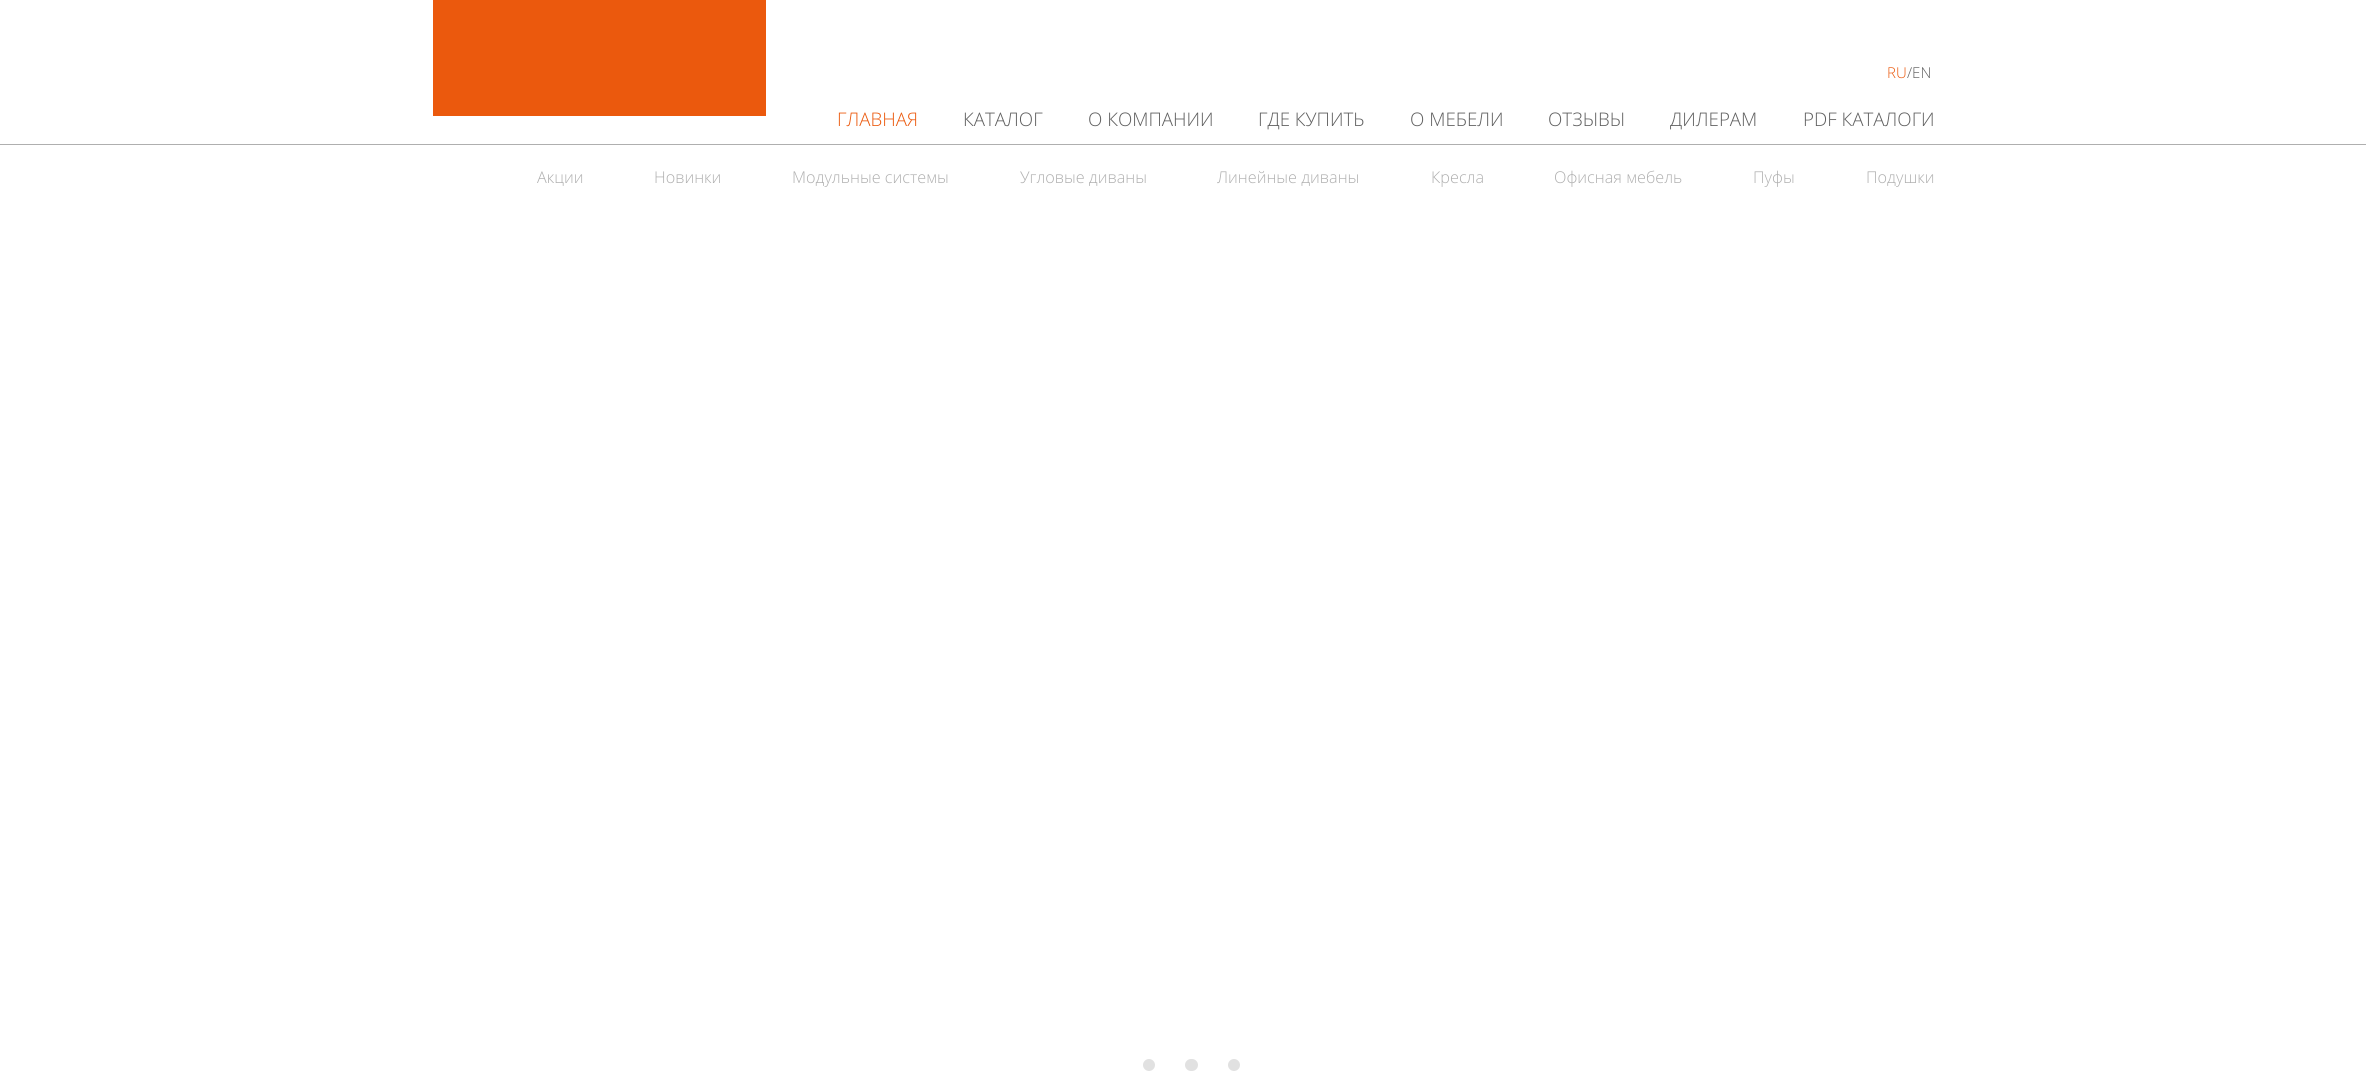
import math
import cairo

surface = cairo.ImageSurface(cairo.Format.RGB24, 2366, 1074)
ctx = cairo.Context(surface)
options = cairo.FontOptions()
options.set_hint_metrics(cairo.HintMetrics.OFF)
options.set_hint_style(cairo.HintStyle.NONE)
ctx.set_font_options(options)
ctx.set_miter_limit(4)


def ink(r, g, b):
    ctx.set_source_rgb(r / 255, g / 255, b / 255)


def write(x, y, s, family, size, color, bold=False, italic=False):
    ctx.select_font_face(family, cairo.FontSlant.ITALIC if italic else cairo.FontSlant.NORMAL, cairo.FontWeight.BOLD if bold else cairo.FontWeight.NORMAL)
    ctx.set_font_size(size)
    ink(*color)
    ctx.move_to(x, y)
    ctx.show_text(s)


def block(x, y, w, h, *color):
    ink(*color)
    ctx.rectangle(x, y, w, h)
    ctx.fill()


def round_path(x, y, w, h, r):
    ctx.new_sub_path()
    for i, (u, v) in enumerate([(x + w - r, y + h - r), (x + r, y + h - r), (x + r, y + r), (x + w - r, y + r)]):
        ctx.arc(u, v, r, i * math.pi / 2, (i + 1) * math.pi / 2)
    ctx.close_path()


s1 = dict(family="Open Sans Light", size=15, color=(235, 89, 13))
s2 = dict(family="Open Sans Light", size=15, color=(95, 95, 95))
s3 = dict(family="Open Sans Light", size=18.75, color=(235, 89, 13))
s4 = dict(family="Open Sans Light", size=18.75, color=(95, 95, 95))
s5 = dict(family="Open Sans Light", size=16.25, color=(175, 175, 175))

ink(255, 255, 255)
ctx.paint()
block(433, 0, 333, 116, 235, 89, 13)
write(1887, 78, "RU", **s1)
write(1907, 78, "/EN", **s2)
write(837, 126, "ГЛАВНАЯ", **s3)
write(963, 126, "КАТАЛОГ", **s4)
write(1088, 126, "О КОМПАНИИ", **s4)
write(1258, 126, "ГДЕ КУПИТЬ", **s4)
write(1410, 126, "О МЕБЕЛИ", **s4)
write(1548, 126, "ОТЗЫВЫ", **s4)
write(1670, 126, "ДИЛЕРАМ", **s4)
write(1803, 126, "PDF КАТАЛОГИ", **s4)
write(537, 183, "Акции", **s5)
write(654, 183, "Новинки", **s5)
write(792, 183, "Модульные системы", **s5)
write(1020, 183, "Угловые диваны", **s5)
write(1217, 183, "Линейные диваны", **s5)
write(1431, 183, "Кресла", **s5)
write(1554, 183, "Офисная мебель", **s5)
write(1753, 183, "Пуфы", **s5)
write(1866, 183, "Подушки", **s5)
block(0, 144, 2366, 1, 175, 175, 175)
ink(225, 225, 225)
ctx.new_path()
ctx.arc(1149, 1065, 6, 0, 2 * math.pi)
ctx.fill()
round_path(1185, 1059, 13, 12, 6)
ctx.fill()
ctx.arc(1234, 1065, 6, 0, 2 * math.pi)
ctx.fill()
surface.write_to_png("screenshot.png")
